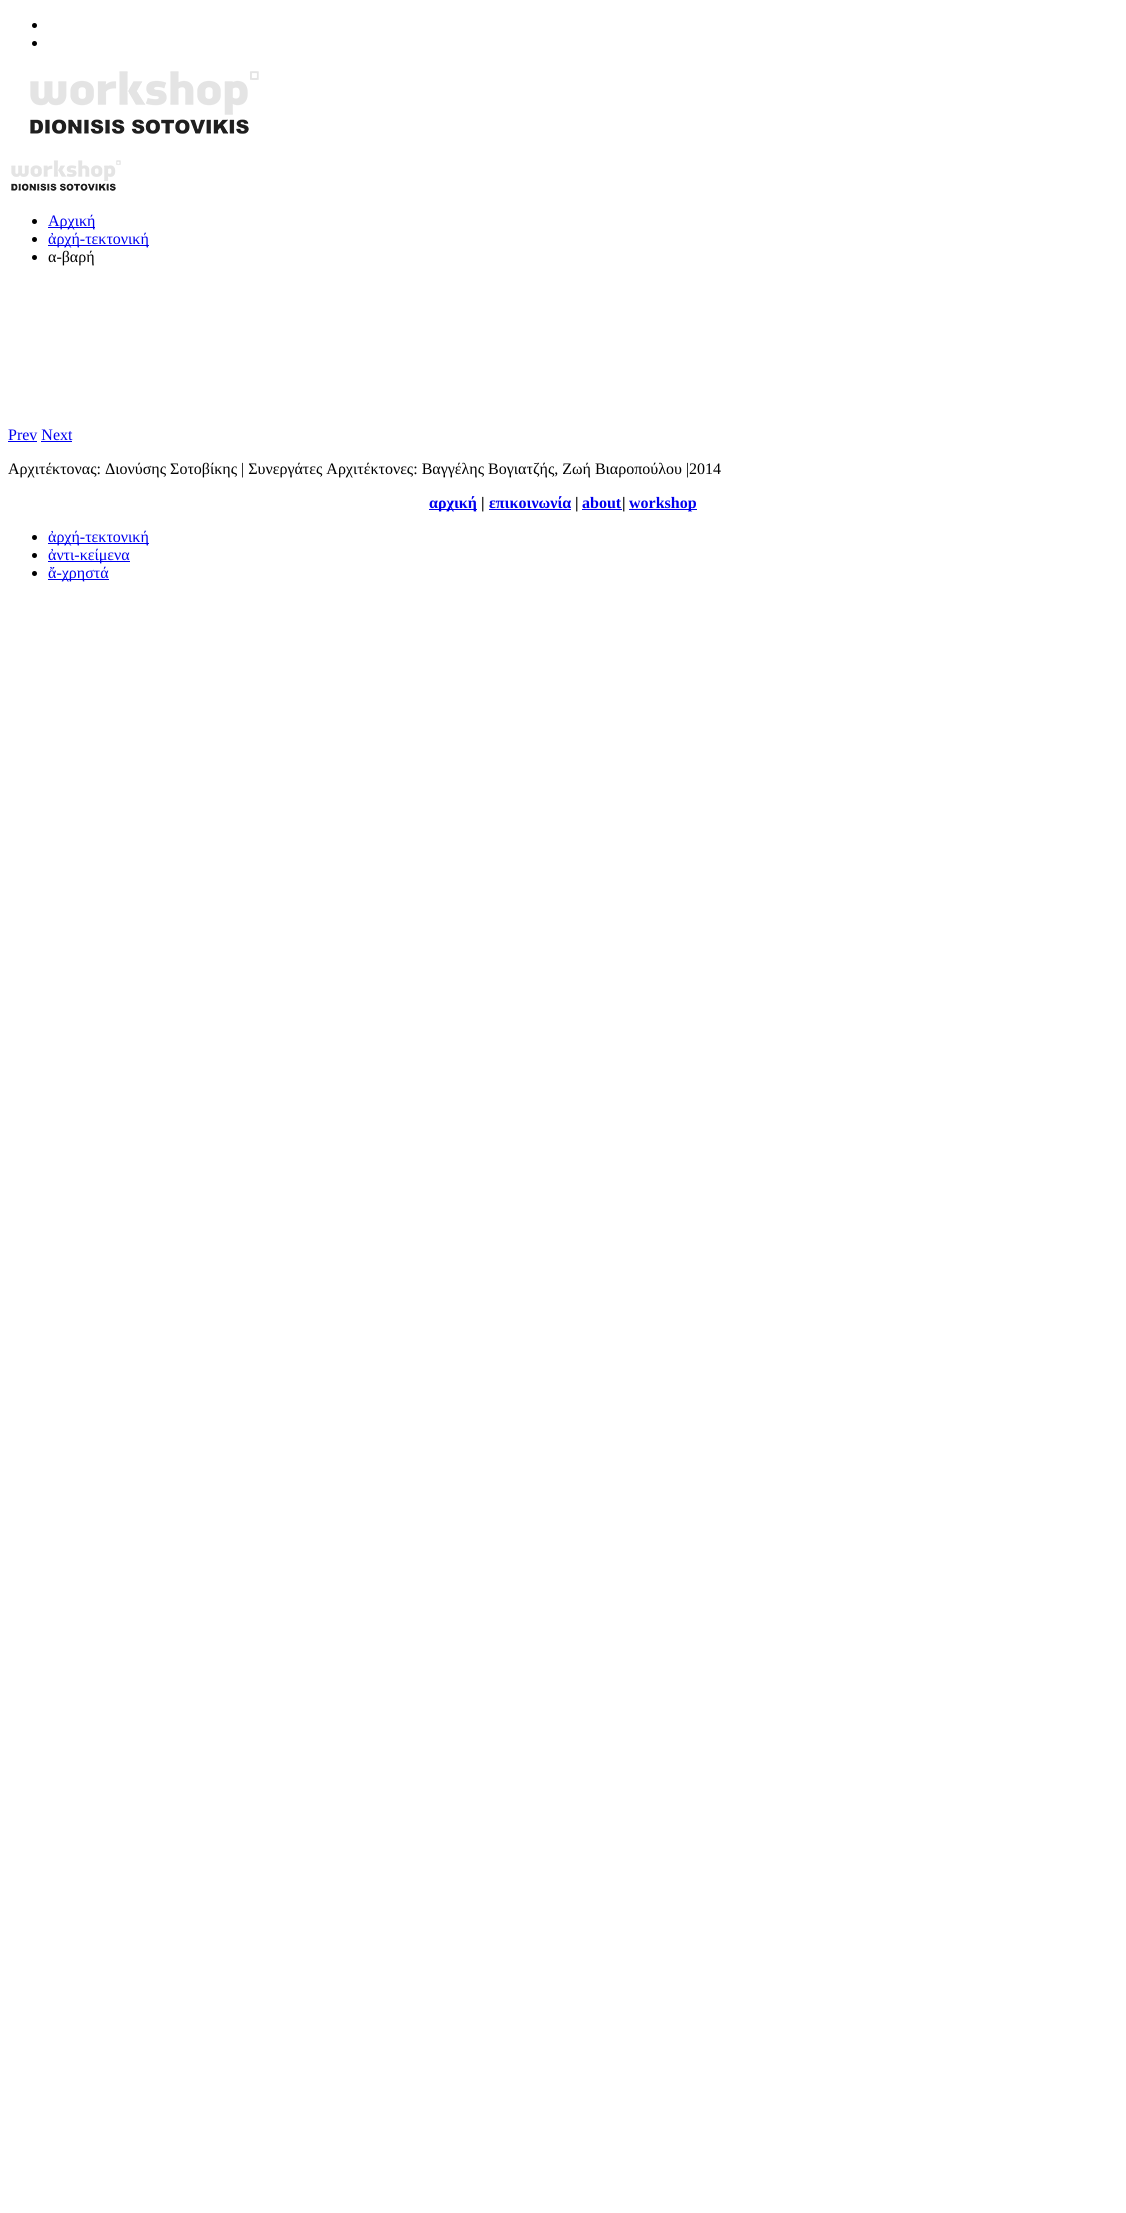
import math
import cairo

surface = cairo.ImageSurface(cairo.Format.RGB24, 1126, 2213)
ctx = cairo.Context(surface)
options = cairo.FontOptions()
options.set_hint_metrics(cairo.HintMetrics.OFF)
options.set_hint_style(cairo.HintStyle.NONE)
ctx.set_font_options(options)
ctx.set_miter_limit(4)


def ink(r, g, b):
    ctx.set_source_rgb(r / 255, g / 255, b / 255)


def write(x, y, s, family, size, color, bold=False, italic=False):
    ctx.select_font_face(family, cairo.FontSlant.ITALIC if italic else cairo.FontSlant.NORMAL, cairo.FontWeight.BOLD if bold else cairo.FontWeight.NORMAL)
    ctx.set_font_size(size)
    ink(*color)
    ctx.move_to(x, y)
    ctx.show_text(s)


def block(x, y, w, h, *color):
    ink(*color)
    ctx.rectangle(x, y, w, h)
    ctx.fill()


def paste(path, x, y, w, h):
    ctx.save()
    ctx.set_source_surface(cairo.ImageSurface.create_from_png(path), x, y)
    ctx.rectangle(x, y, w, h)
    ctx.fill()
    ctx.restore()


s1 = dict(family="Liberation Serif", size=16, color=(0, 0, 238))
s2 = dict(family="Liberation Serif", size=16, color=(0, 0, 0))
s3 = dict(family="Liberation Serif", size=16, color=(0, 0, 238), bold=True)
s4 = dict(family="Liberation Serif", size=16, color=(0, 0, 0), bold=True)

ink(255, 255, 255)
ctx.paint()
ink(0, 0, 0)
ctx.arc(34.5, 25.5, 2.5, 0, 2 * math.pi)
ctx.fill()
ctx.arc(34.5, 43.5, 2.5, 0, 2 * math.pi)
ctx.fill()
paste("pic1.png", 30, 71, 229, 63)
paste("pic2.png", 11, 160, 110, 31)
ctx.arc(34.5, 221.5, 2.5, 0, 2 * math.pi)
ctx.fill()
block(48, 227, 47, 1, 0, 0, 238)
write(48, 226, "Αρχική", **s1)
ink(0, 0, 0)
ctx.new_path()
ctx.arc(34.5, 239.5, 2.5, 0, 2 * math.pi)
ctx.fill()
block(48, 245, 101, 1, 0, 0, 238)
write(48, 244, "ἀρχή-τεκτονική", **s1)
ink(0, 0, 0)
ctx.new_path()
ctx.arc(34.5, 257.5, 2.5, 0, 2 * math.pi)
ctx.fill()
write(48, 262, "α-βαρή", **s2)
write(8, 440, "Prev Next", **s1)
block(8, 441, 29, 1, 0, 0, 238)
block(41, 441, 31, 1, 0, 0, 238)
write(8, 474, "Αρχιτέκτονας: Διονύσης Σοτοβίκης | Συνεργάτες Αρχιτέκτονες: Βαγγέλης Βογιατζής, Ζωή Βιαροπούλου |2014", **s2)
block(429, 509, 48, 1, 0, 0, 238)
write(429, 508, "αρχική", **s3)
write(481, 508, "|", **s4)
write(489, 508, "επικοινωνία", **s3)
block(489, 509, 82, 1, 0, 0, 238)
write(575, 508, "|", **s4)
write(582, 508, "about", **s3)
write(622, 508, "|", **s4)
block(582, 509, 40, 1, 0, 0, 238)
block(629, 509, 68, 1, 0, 0, 238)
write(629, 508, "workshop", **s3)
ink(0, 0, 0)
ctx.new_path()
ctx.arc(34.5, 537.5, 2.5, 0, 2 * math.pi)
ctx.fill()
block(48, 543, 101, 1, 0, 0, 238)
write(48, 542, "ἀρχή-τεκτονική", **s1)
ink(0, 0, 0)
ctx.new_path()
ctx.arc(34.5, 555.5, 2.5, 0, 2 * math.pi)
ctx.fill()
block(48, 561, 82, 1, 0, 0, 238)
write(48, 560, "ἀντι-κείμενα", **s1)
ink(0, 0, 0)
ctx.new_path()
ctx.arc(34.5, 573.5, 2.5, 0, 2 * math.pi)
ctx.fill()
block(48, 579, 61, 1, 0, 0, 238)
write(48, 578, "ἄ-χρηστά", **s1)
surface.write_to_png("screenshot.png")
